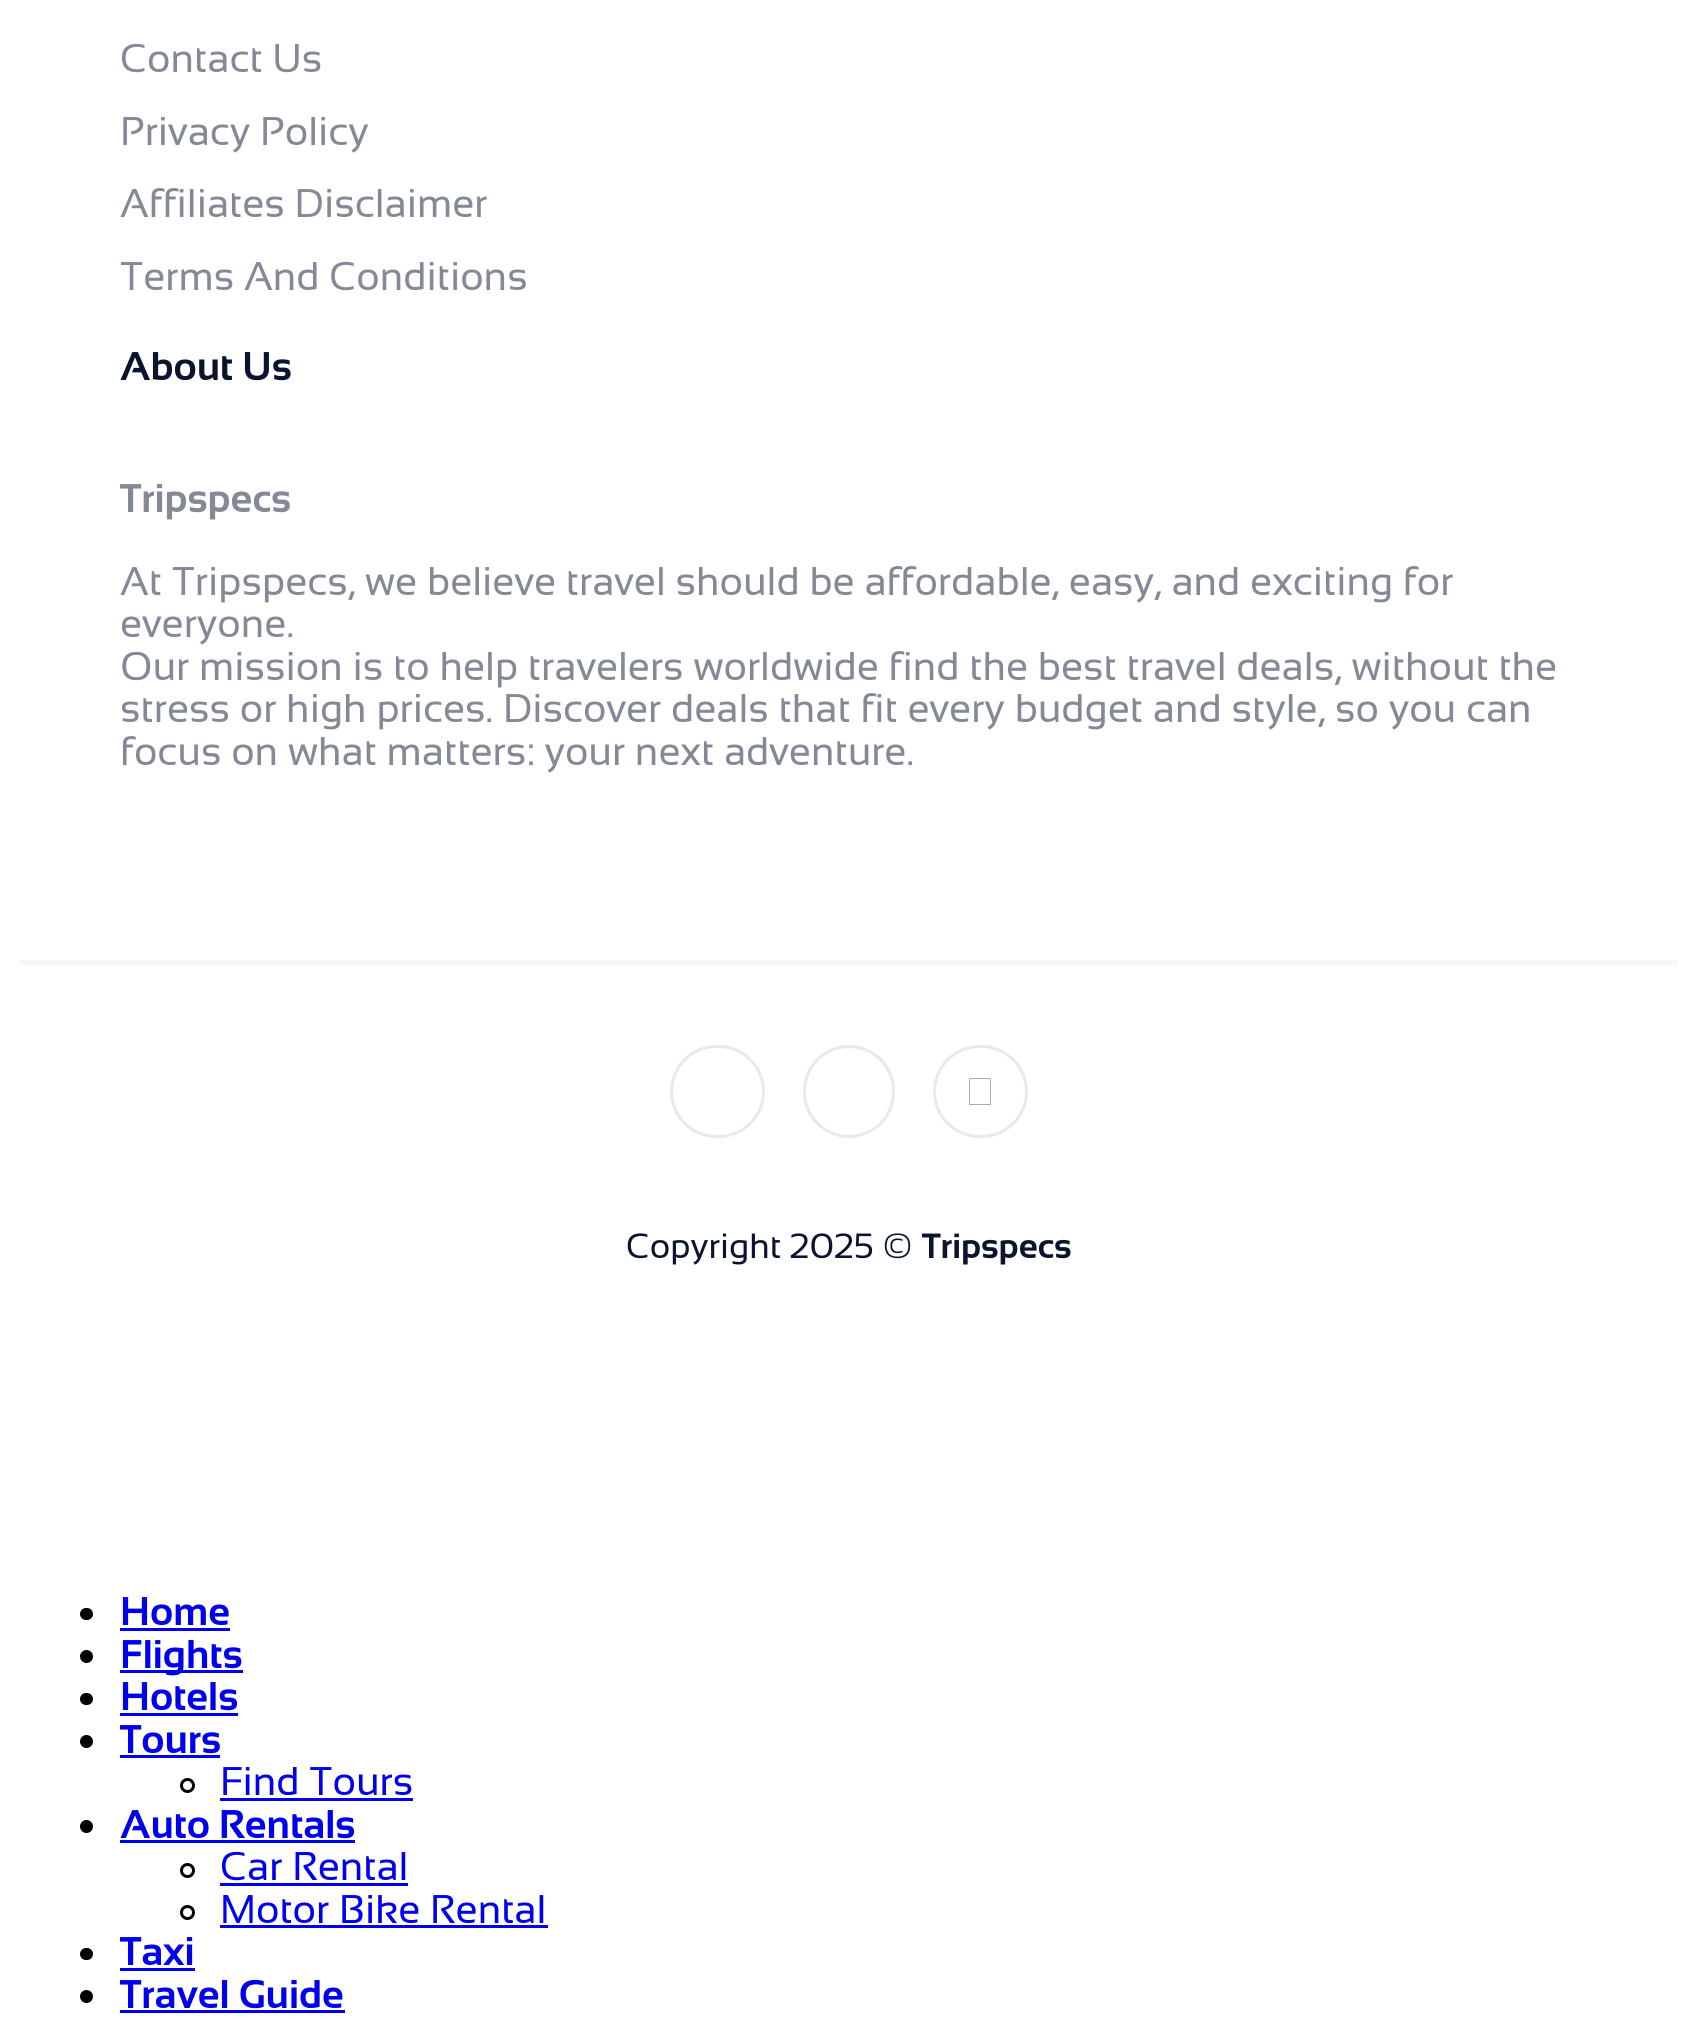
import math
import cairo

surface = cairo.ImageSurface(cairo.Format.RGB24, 1697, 2028)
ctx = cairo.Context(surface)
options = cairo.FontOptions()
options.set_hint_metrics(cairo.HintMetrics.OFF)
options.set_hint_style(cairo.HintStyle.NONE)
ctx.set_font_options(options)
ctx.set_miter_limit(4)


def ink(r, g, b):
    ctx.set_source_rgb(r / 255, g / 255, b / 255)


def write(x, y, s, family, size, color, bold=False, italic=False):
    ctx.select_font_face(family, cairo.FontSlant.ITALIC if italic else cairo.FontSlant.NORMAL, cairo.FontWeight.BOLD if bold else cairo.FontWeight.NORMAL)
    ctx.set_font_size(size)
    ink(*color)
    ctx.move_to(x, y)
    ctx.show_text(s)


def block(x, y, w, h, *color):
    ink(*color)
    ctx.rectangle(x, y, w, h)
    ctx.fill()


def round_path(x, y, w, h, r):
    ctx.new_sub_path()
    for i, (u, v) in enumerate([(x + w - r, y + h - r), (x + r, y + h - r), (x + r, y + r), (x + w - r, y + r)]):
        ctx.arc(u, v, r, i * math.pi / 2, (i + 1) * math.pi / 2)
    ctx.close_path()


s1 = dict(family="Sansation", size=40, color=(132, 137, 150))
s2 = dict(family="Sansation", size=40, color=(10, 20, 47), bold=True)
s3 = dict(family="Sansation", size=40, color=(132, 137, 150), bold=True)
s4 = dict(family="Sansation", size=35, color=(10, 20, 47))
s5 = dict(family="Sansation", size=35, color=(10, 20, 47), bold=True)
s6 = dict(family="Sansation", size=40, color=(0, 0, 238), bold=True)
s7 = dict(family="Sansation", size=40, color=(0, 0, 238))

ink(255, 255, 255)
ctx.paint()
block(20, 960, 1658, 5, 246, 247, 248)
write(120, 72, "Contact Us", **s1)
write(120, 145, "Privacy Policy", **s1)
write(120, 217, "Affiliates Disclaimer", **s1)
write(120, 290, "Terms And Conditions", **s1)
write(120, 380, "About Us", **s2)
write(120, 512, "Tripspecs", **s3)
write(120, 595, "At Tripspecs, we believe travel should be affordable, easy, and exciting for", **s1)
write(120, 637, "everyone.", **s1)
write(120, 680, "Our mission is to help travelers worldwide find the best travel deals, without the", **s1)
write(120, 722, "stress or high prices. Discover deals that fit every budget and style, so you can", **s1)
write(120, 765, "focus on what matters: your next adventure.", **s1)
round_path(671.5, 1046.5, 92, 90, 45)
ink(231, 232, 242)
ctx.set_line_width(3)
ctx.stroke()
round_path(804.5, 1046.5, 89, 90, 44.5)
ctx.stroke()
round_path(934.5, 1046.5, 92, 90, 45)
ctx.stroke()
ink(81, 94, 116)
ctx.new_path()
ctx.move_to(969.5, 1105)
ctx.line_to(969.5, 1078.5)
ctx.line_to(990.5, 1078.5)
ctx.line_to(990.5, 1105)
ctx.close_path()
ctx.move_to(970, 1104.5)
ctx.line_to(990, 1104.5)
ctx.line_to(990, 1079)
ctx.line_to(970, 1079)
ctx.close_path()
ctx.fill()
write(626, 1258, "Copyright 2025 ©", **s4)
write(922, 1258, "Tripspecs", **s5)
ink(0, 0, 0)
round_path(80, 1608, 13, 12, 6)
ctx.fill()
write(120, 1625, "Home", **s6)
block(120, 1628, 110, 3, 0, 0, 238)
ink(0, 0, 0)
ctx.new_path()
ctx.arc(86.5, 1656.5, 6.5, 0, 2 * math.pi)
ctx.fill()
block(120, 1670, 123, 3, 0, 0, 238)
write(120, 1668, "Flights", **s6)
ink(0, 0, 0)
round_path(80, 1693, 13, 12, 6)
ctx.fill()
write(120, 1710, "Hotels", **s6)
block(120, 1713, 118, 3, 0, 0, 238)
ink(0, 0, 0)
ctx.new_path()
ctx.arc(86.5, 1741.5, 6.5, 0, 2 * math.pi)
ctx.fill()
write(120, 1753, "Tours", **s6)
block(120, 1755, 100, 3, 0, 0, 238)
ctx.new_path()
ctx.arc(187.5, 1785.5, 6, 0, 2 * math.pi)
ink(0, 0, 0)
ctx.stroke()
write(220, 1795, "Find Tours", **s7)
block(220, 1798, 193, 3, 0, 0, 238)
ink(0, 0, 0)
ctx.new_path()
ctx.arc(86.5, 1826.5, 6.5, 0, 2 * math.pi)
ctx.fill()
write(120, 1838, "Auto Rentals", **s6)
block(120, 1840, 235, 3, 0, 0, 238)
ctx.new_path()
ctx.arc(187.5, 1870.5, 6, 0, 2 * math.pi)
ink(0, 0, 0)
ctx.stroke()
write(220, 1880, "Car Rental", **s7)
block(220, 1883, 188, 3, 0, 0, 238)
ctx.new_path()
ctx.arc(187.5, 1912.5, 6, 0, 2 * math.pi)
ink(0, 0, 0)
ctx.stroke()
write(220, 1923, "Motor Bike Rental", **s7)
block(220, 1925, 328, 3, 0, 0, 238)
ink(0, 0, 0)
round_path(80, 1948, 13, 12, 6)
ctx.fill()
write(120, 1965, "Taxi", **s6)
block(120, 1968, 75, 3, 0, 0, 238)
ink(0, 0, 0)
ctx.new_path()
ctx.arc(86.5, 1996.5, 6.5, 0, 2 * math.pi)
ctx.fill()
write(120, 2008, "Travel Guide", **s6)
block(120, 2010, 225, 3, 0, 0, 238)
surface.write_to_png("screenshot.png")
